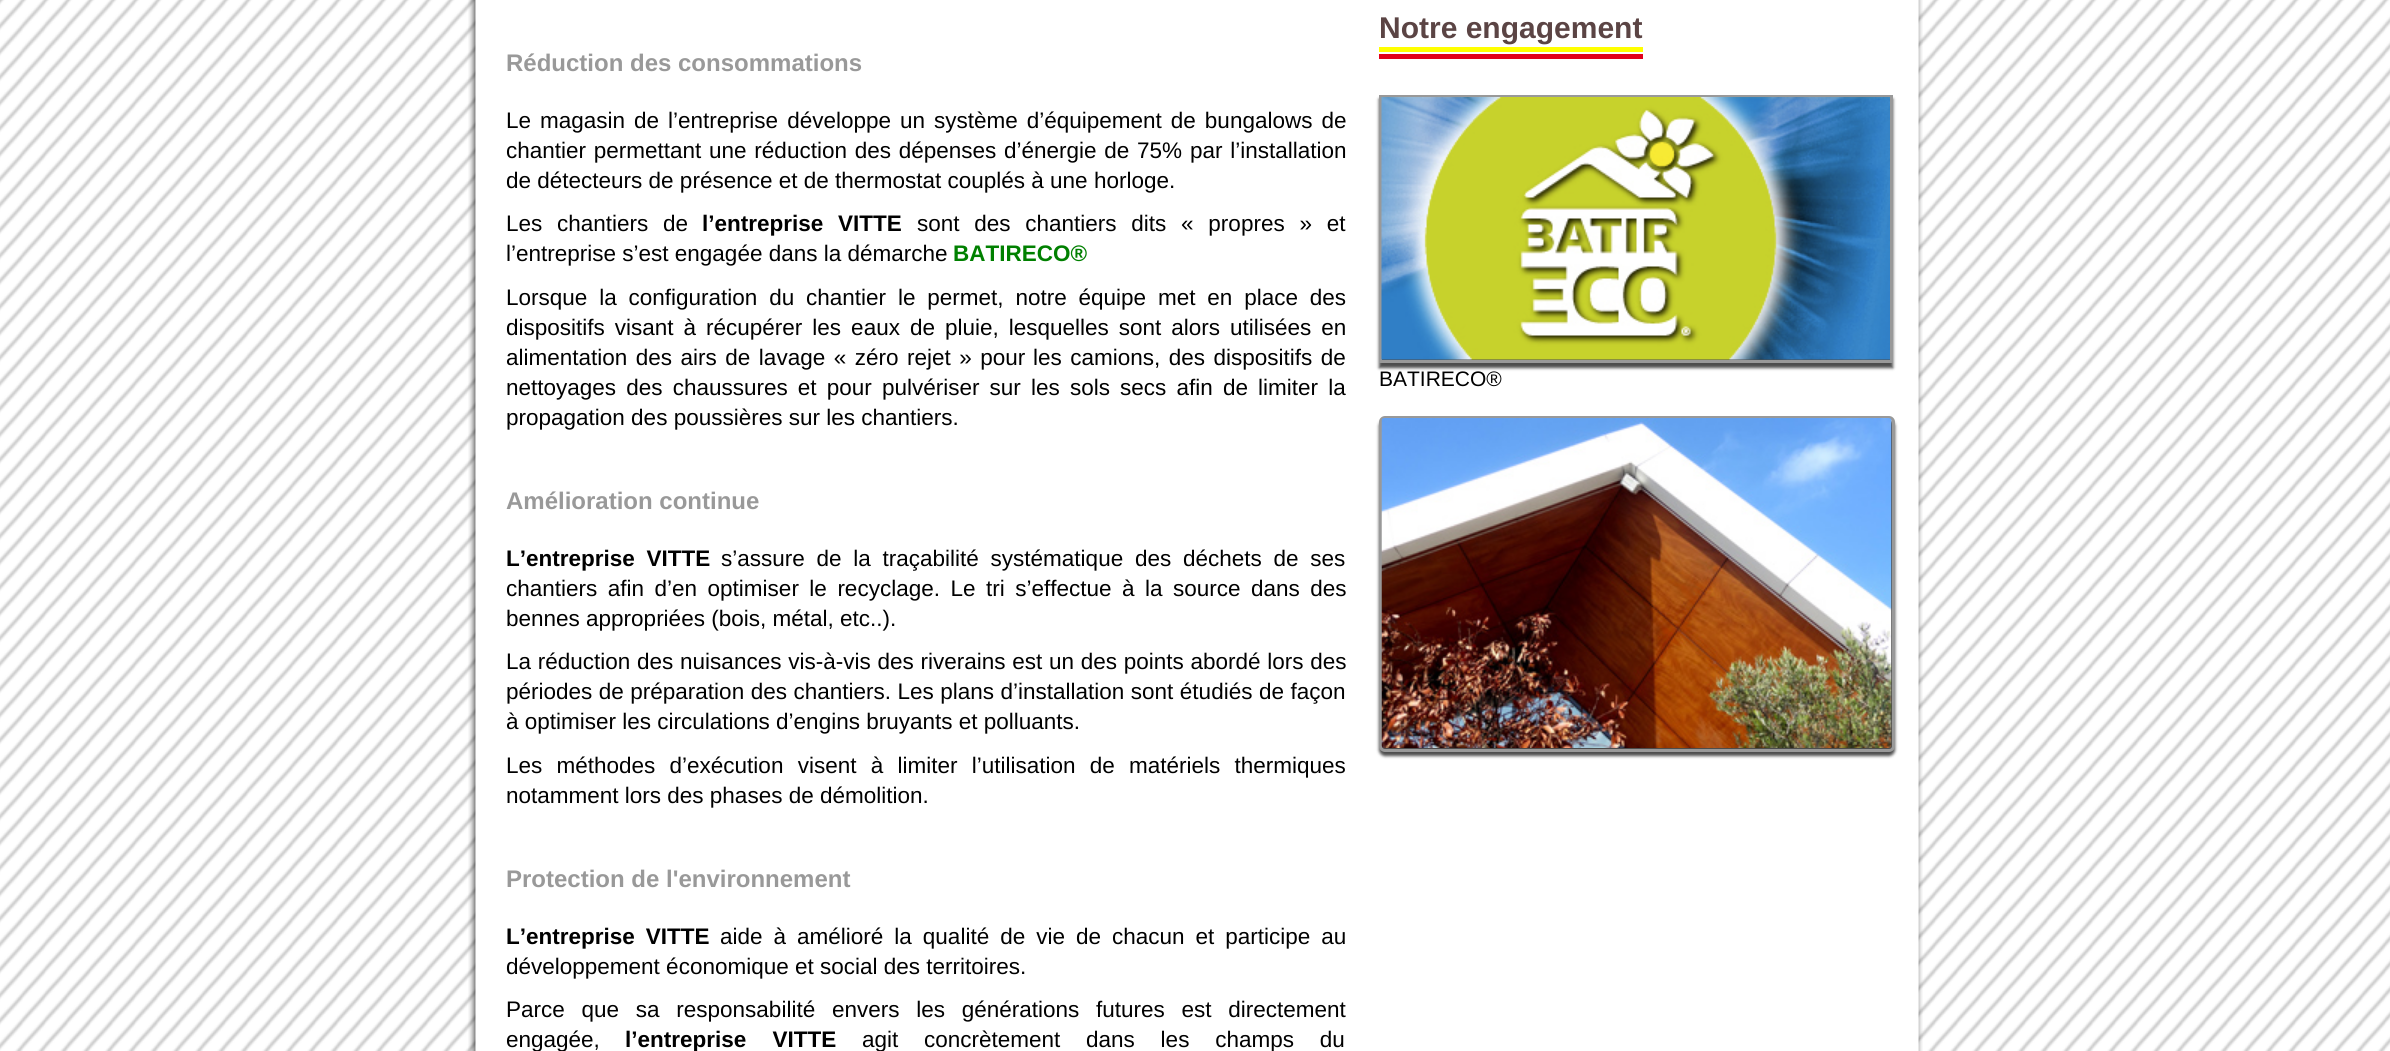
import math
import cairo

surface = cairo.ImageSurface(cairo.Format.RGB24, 2390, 1051)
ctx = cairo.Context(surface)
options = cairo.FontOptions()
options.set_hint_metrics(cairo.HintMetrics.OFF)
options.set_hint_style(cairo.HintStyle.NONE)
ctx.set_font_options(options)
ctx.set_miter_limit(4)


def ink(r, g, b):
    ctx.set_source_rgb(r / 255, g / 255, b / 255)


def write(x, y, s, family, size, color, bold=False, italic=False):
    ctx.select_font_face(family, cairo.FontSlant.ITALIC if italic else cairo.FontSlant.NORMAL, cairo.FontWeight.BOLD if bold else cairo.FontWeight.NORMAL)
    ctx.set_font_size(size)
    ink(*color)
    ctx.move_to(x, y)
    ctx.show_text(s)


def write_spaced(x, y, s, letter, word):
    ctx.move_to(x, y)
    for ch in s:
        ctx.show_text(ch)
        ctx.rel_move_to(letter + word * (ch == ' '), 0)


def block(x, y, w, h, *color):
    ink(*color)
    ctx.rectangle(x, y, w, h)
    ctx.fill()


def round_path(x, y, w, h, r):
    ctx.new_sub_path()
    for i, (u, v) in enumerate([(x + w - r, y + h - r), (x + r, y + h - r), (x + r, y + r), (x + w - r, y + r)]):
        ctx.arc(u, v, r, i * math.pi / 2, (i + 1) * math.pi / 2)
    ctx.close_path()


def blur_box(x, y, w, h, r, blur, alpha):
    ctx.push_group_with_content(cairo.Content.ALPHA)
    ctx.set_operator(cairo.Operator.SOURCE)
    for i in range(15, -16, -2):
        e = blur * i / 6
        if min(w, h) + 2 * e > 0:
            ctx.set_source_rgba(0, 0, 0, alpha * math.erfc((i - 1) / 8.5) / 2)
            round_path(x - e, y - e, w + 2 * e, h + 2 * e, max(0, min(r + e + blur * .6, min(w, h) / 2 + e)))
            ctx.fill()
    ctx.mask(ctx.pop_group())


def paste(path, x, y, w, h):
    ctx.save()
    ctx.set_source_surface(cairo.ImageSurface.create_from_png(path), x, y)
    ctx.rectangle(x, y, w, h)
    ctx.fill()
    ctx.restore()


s1 = dict(family="Liberation Sans", size=24, color=(153, 153, 153), bold=True)
s2 = dict(family="Liberation Sans", size=22.5, color=(0, 0, 0))
s3 = dict(family="Liberation Sans", size=22.5, color=(0, 128, 0), bold=True)
s4 = dict(family="Liberation Sans", size=30, color=(91, 68, 68), bold=True)
s5 = dict(family="Liberation Sans", size=21, color=(0, 0, 0))

ink(255, 255, 255)
ctx.paint()
paste("pic1.png", 0, 0, 2390, 1051)
paste("pic2.png", 468, 0, 1455, 1051)
write(506, 71, "Réduction des consommations", **s1)
ctx.select_font_face("Liberation Sans")
ctx.set_font_size(22.5)
ink(0, 0, 0)
write_spaced(506, 128, "Le magasin de l’entreprise développe un système d’équipement de bungalows de", 0, 2.75)
write_spaced(506, 158, "chantier permettant une réduction des dépenses d’énergie de 75% par l’installation", 0, 1.5)
write(506, 188, "de détecteurs de présence et de thermostat couplés à une horloge.", **s2)
write_spaced(506, 231, "Les chantiers de", 0, 8.5)
ctx.select_font_face("Liberation Sans", cairo.FontSlant.NORMAL, cairo.FontWeight.BOLD)
write_spaced(702, 231, "l’entreprise VITTE", 0, 8.5)
ctx.select_font_face("Liberation Sans")
write_spaced(917, 231, "sont des chantiers dits « propres » et", 0, 8.5)
write(506, 261, "l’entreprise s’est engagée dans la démarche", **s2)
write(953, 261, "BATIRECO®", **s3)
ctx.select_font_face("Liberation Sans")
ink(0, 0, 0)
write_spaced(506, 305, "Lorsque la configuration du chantier le permet, notre équipe met en place des", 0, 5.6)
write_spaced(506, 335, "dispositifs visant à récupérer les eaux de pluie, lesquelles sont alors utilisées en", 0, 3.75)
write_spaced(506, 365, "alimentation des airs de lavage « zéro rejet » pour", 0, 2.25)
write_spaced(1033, 365, "les camions, des dispositifs de", 0, 2.25)
write_spaced(506, 395, "nettoyages des chaussures et pour pulvériser sur les sols secs afin de limiter la", 0, 3.9)
write(506, 425, "propagation des poussières sur les chantiers.", **s2)
write(506, 509, "Amélioration continue", **s1)
ctx.set_font_size(22.5)
ink(0, 0, 0)
write_spaced(506, 566, "L’entreprise VITTE", 0, 5.5)
ctx.select_font_face("Liberation Sans")
write_spaced(721, 566, "s’assure de la traçabilité systématique des déchets de ses", 0, 5.5)
write_spaced(506, 596, "chantiers afin d’en optimiser le recyclage. Le tri s’effectue à la source dans des", 0, 4.25)
write(506, 626, "bennes appropriées (bois, métal, etc..).", **s2)
write_spaced(506, 669, "La réduction des nuisances vis-à-vis des riverains est un des points abordé lors des", 0, 0.5)
write_spaced(506, 699, "périodes de préparation des chantiers. Les plans d’installation sont étudiés de façon", 0, 0.25)
write(506, 729, "à optimiser les circulations d’engins bruyants et polluants.", **s2)
write_spaced(506, 773, "Les méthodes d’exécution visent à limiter l’utilisation de matériels thermiques", 0, 8)
write(506, 803, "notamment lors des phases de démolition.", **s2)
write(506, 887, "Protection de l'environnement", **s1)
ctx.set_font_size(22.5)
ink(0, 0, 0)
write_spaced(506, 944, "L’entreprise VITTE", 0, 4.75)
ctx.select_font_face("Liberation Sans")
write_spaced(720, 944, "aide à amélioré la qualité de vie de chacun et participe au", 0, 4.75)
write(506, 974, "développement économique et social des territoires.", **s2)
write_spaced(506, 1017, "Parce que sa responsabilité envers les générations futures est directement", 0, 10.5)
write(506, 1047, "engagée,", **s2)
ctx.select_font_face("Liberation Sans", cairo.FontSlant.NORMAL, cairo.FontWeight.BOLD)
write_spaced(625, 1047, "l’entreprise VITTE", 0, 20)
ctx.select_font_face("Liberation Sans")
write_spaced(862, 1047, "agit concrètement dans les champs du", 0, 19.5)
block(1379, 54, 264, 5, 226, 0, 26)
block(1379, 47, 264, 5, 255, 255, 0)
write(1379, 38, "Notre engagement", **s4)
ink(0, 0, 0)
blur_box(1379, 99, 514, 269, 0, 1.5, 0.7)
ctx.rectangle(1380.5, 96.5, 511, 265)
ink(153, 153, 153)
ctx.set_line_width(3)
ctx.stroke()
paste("pic3.png", 1381, 97, 509, 263)
write(1379, 386, "BATIRECO®", **s5)
ink(0, 0, 0)
blur_box(1379, 420, 516, 336, 6, 1.5, 0.7)
round_path(1380.5, 417.5, 513, 333, 4.5)
ink(153, 153, 153)
ctx.stroke()
paste("pic4.png", 1381, 418, 511, 330)
surface.write_to_png("screenshot.png")
